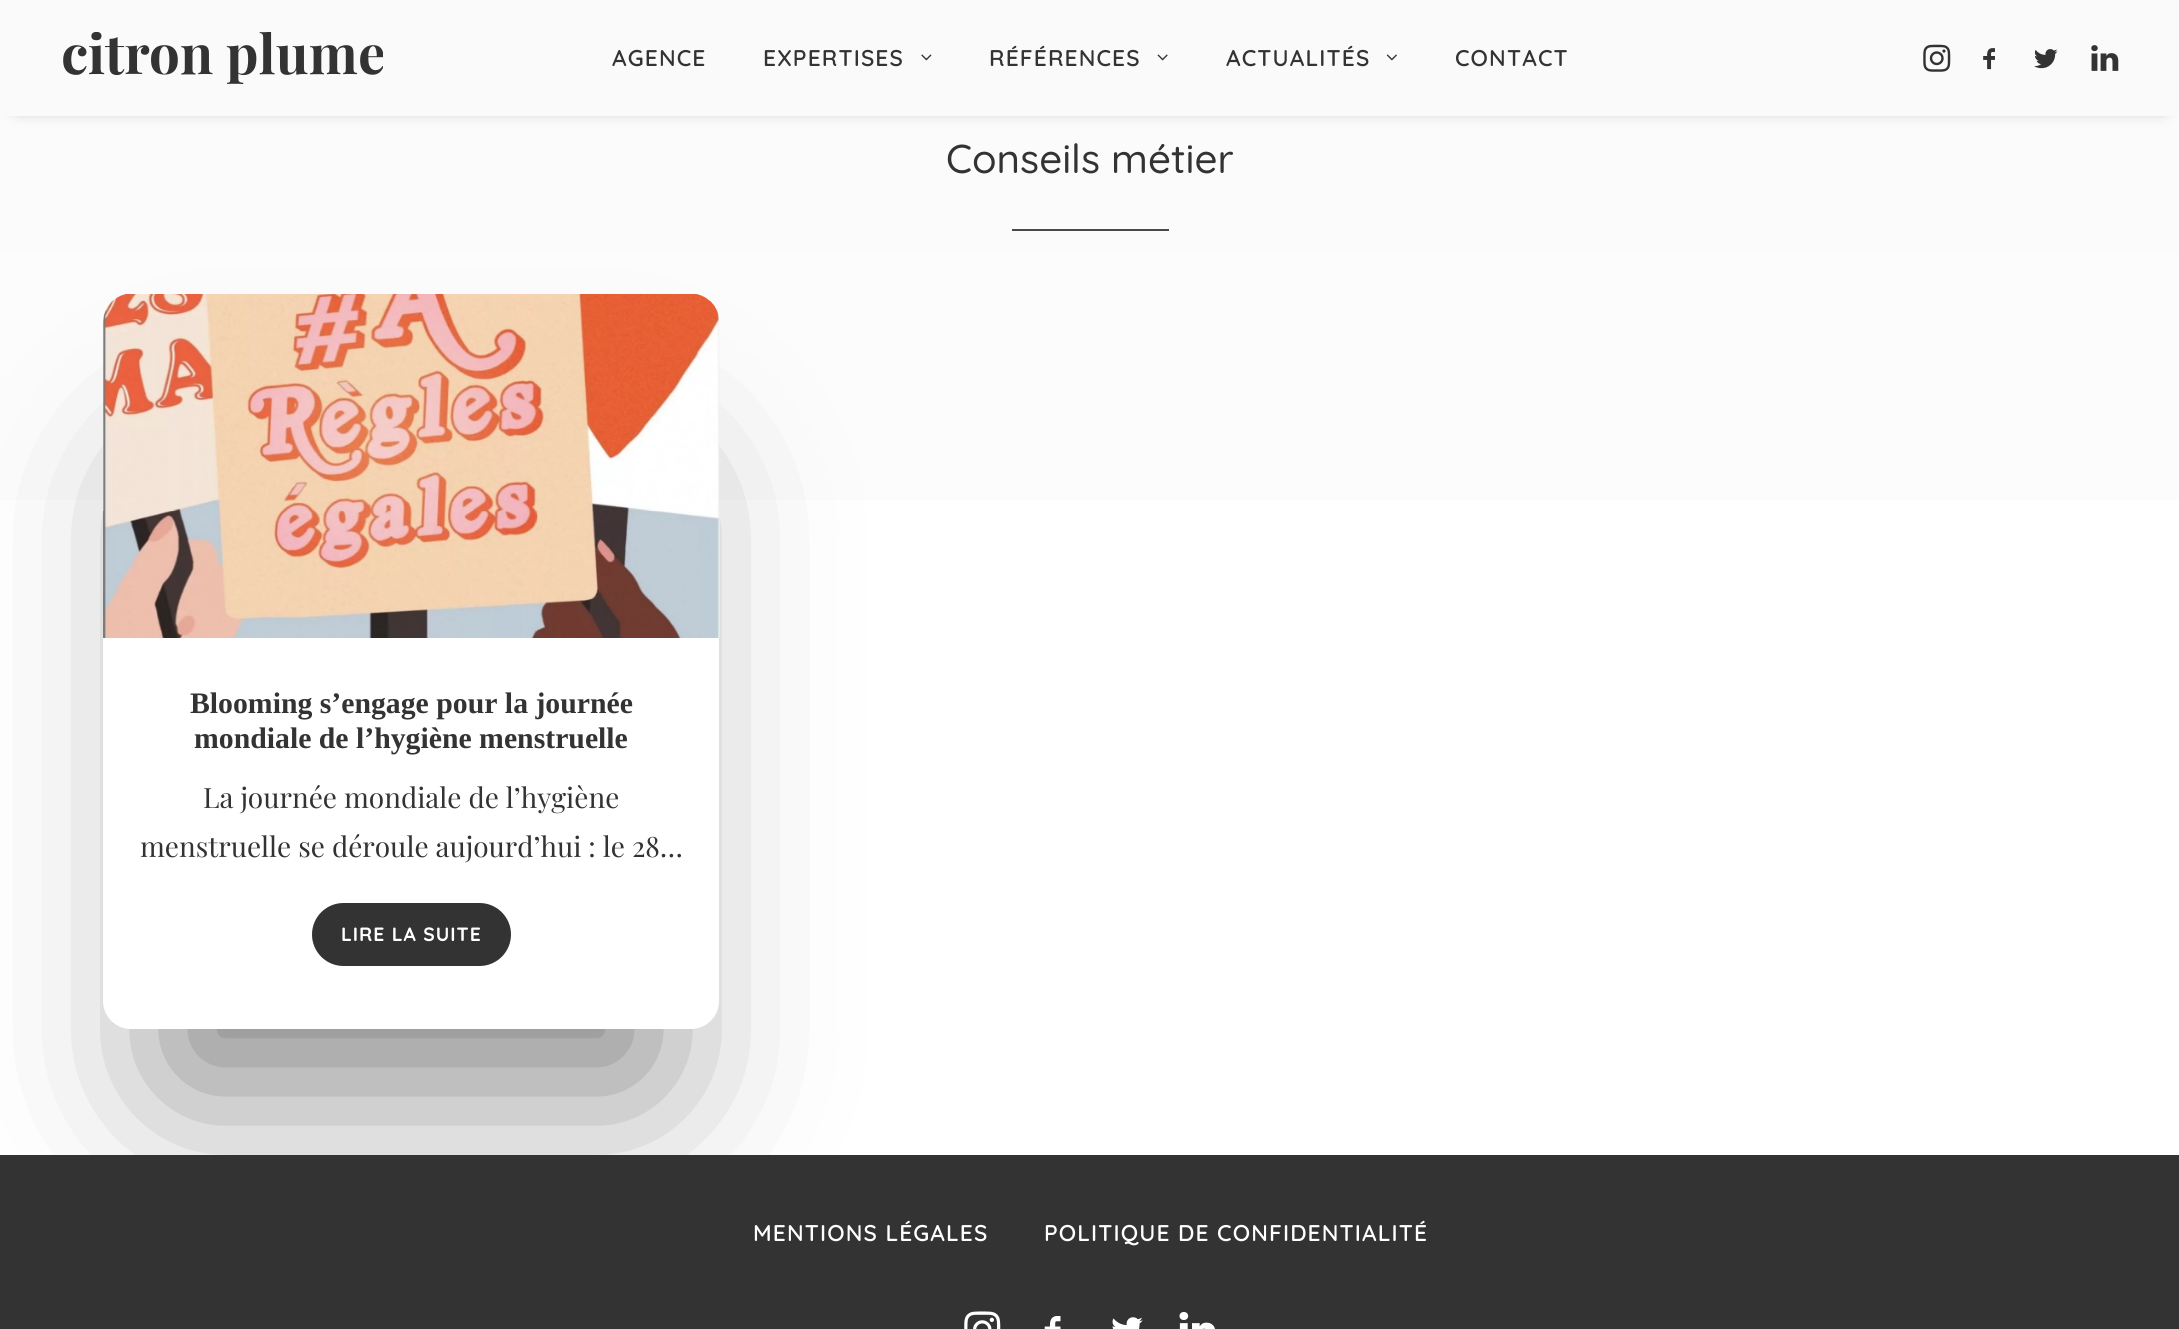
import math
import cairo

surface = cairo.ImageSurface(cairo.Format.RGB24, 2179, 1329)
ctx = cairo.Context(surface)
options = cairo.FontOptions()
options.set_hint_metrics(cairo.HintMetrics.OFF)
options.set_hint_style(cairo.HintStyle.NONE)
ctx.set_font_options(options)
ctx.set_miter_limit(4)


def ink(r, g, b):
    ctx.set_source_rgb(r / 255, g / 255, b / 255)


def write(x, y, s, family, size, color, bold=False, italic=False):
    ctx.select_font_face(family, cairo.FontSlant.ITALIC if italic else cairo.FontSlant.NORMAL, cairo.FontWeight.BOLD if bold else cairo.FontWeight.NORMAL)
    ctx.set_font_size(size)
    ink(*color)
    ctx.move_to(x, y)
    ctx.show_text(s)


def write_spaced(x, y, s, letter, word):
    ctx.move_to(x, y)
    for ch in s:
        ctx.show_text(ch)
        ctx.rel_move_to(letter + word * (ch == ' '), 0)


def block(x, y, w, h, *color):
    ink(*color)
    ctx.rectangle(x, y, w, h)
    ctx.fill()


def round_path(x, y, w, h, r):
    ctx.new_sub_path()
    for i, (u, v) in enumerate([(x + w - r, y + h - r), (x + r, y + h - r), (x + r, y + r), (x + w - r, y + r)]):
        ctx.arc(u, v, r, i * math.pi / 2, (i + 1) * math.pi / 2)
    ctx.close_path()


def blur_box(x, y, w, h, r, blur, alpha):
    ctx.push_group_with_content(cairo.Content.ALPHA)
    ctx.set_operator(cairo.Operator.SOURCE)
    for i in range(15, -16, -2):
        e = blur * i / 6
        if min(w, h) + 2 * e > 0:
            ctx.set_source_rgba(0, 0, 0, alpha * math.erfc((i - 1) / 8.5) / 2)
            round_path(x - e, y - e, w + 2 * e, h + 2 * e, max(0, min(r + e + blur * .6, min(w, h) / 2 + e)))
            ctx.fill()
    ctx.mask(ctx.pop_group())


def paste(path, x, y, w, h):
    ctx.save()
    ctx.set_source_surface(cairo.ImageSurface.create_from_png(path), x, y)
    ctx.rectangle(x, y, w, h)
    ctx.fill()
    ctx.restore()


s1 = dict(family="Quicksand Medium", size=40.25, color=(51, 51, 51))
s2 = dict(family="Liberation Serif", size=29.75, color=(51, 51, 51), bold=True)
s3 = dict(family="Playfair Display", size=28, color=(51, 51, 51))

ink(255, 255, 255)
ctx.paint()
gradient = cairo.LinearGradient(1090, -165, 1090, 1166)
gradient.add_color_stop_rgba(0, 0.98, 0.98, 0.98, 1)
gradient.add_color_stop_rgba(1, 1, 1, 1, 1)
ctx.set_source(gradient)
ctx.rectangle(0, 116, 2179, 384)
ctx.fill()
ink(0, 0, 0)
blur_box(18, 25, 2145, 80, 0, 9, 0.6)
block(0, 0, 2179, 116, 250, 250, 250)
paste("pic1.png", 63, 32, 320, 52)
ctx.select_font_face("Quicksand SemiBold")
ctx.set_font_size(22.75)
ink(51, 51, 51)
write_spaced(612, 66, "AGENCE", 1.15, 0)
write_spaced(763, 66, "EXPERTISES", 1.15, 0)
paste("pic2.png", 921, 54, 11, 7)
write_spaced(989, 66, "RÉFÉRENCES", 1.15, 0)
paste("pic3.png", 1157, 54, 11, 7)
write_spaced(1226, 66, "ACTUALITÉS", 1.15, 0)
paste("pic4.png", 1386, 54, 11, 7)
write_spaced(1455, 66, "CONTACT", 1.15, 0)
paste("pic5.png", 1923, 44, 28, 28)
paste("pic6.png", 1983, 48, 12, 22)
paste("pic7.png", 2034, 49, 24, 20)
paste("pic8.png", 2091, 45, 28, 26)
write(946, 173, "Conseils métier", **s1)
block(1012, 229, 157, 2, 73, 73, 73)
ink(0, 0, 0)
blur_box(173, 487, 476, 595, 0, 87.5, 0.5)
ink(255, 255, 255)
round_path(103, 294, 616, 735, 28)
ctx.fill()
paste("pic9.png", 103, 294, 617, 344)
write(190, 713, "Blooming s’engage pour la journée", **s2)
write(194, 748, "mondiale de l’hygiène menstruelle", **s2)
write(203, 808, "La journée mondiale de l’hygiène", **s3)
write(140, 857, "menstruelle se déroule aujourd’hui : le 28…", **s3)
round_path(313, 904, 197, 61, 30.5)
ctx.fill_preserve()
ctx.stroke()
ctx.select_font_face("Quicksand", cairo.FontSlant.NORMAL, cairo.FontWeight.BOLD)
ctx.set_font_size(19.25)
ink(255, 255, 255)
write_spaced(341, 941, "LIRE LA SUITE", 1, 0)
block(0, 1155, 2179, 174, 51, 51, 51)
ctx.select_font_face("Quicksand SemiBold")
ctx.set_font_size(22.75)
ink(255, 255, 255)
write_spaced(753, 1241, "MENTIONS LÉGALES", 1.15, 0)
write_spaced(1044, 1241, "POLITIQUE DE CONFIDENTIALITÉ", 1.15, 0)
paste("pic10.png", 964, 1311, 37, 18)
paste("pic11.png", 1044, 1316, 17, 13)
paste("pic12.png", 1112, 1317, 31, 12)
paste("pic13.png", 1179, 1312, 36, 17)
surface.write_to_png("screenshot.png")
